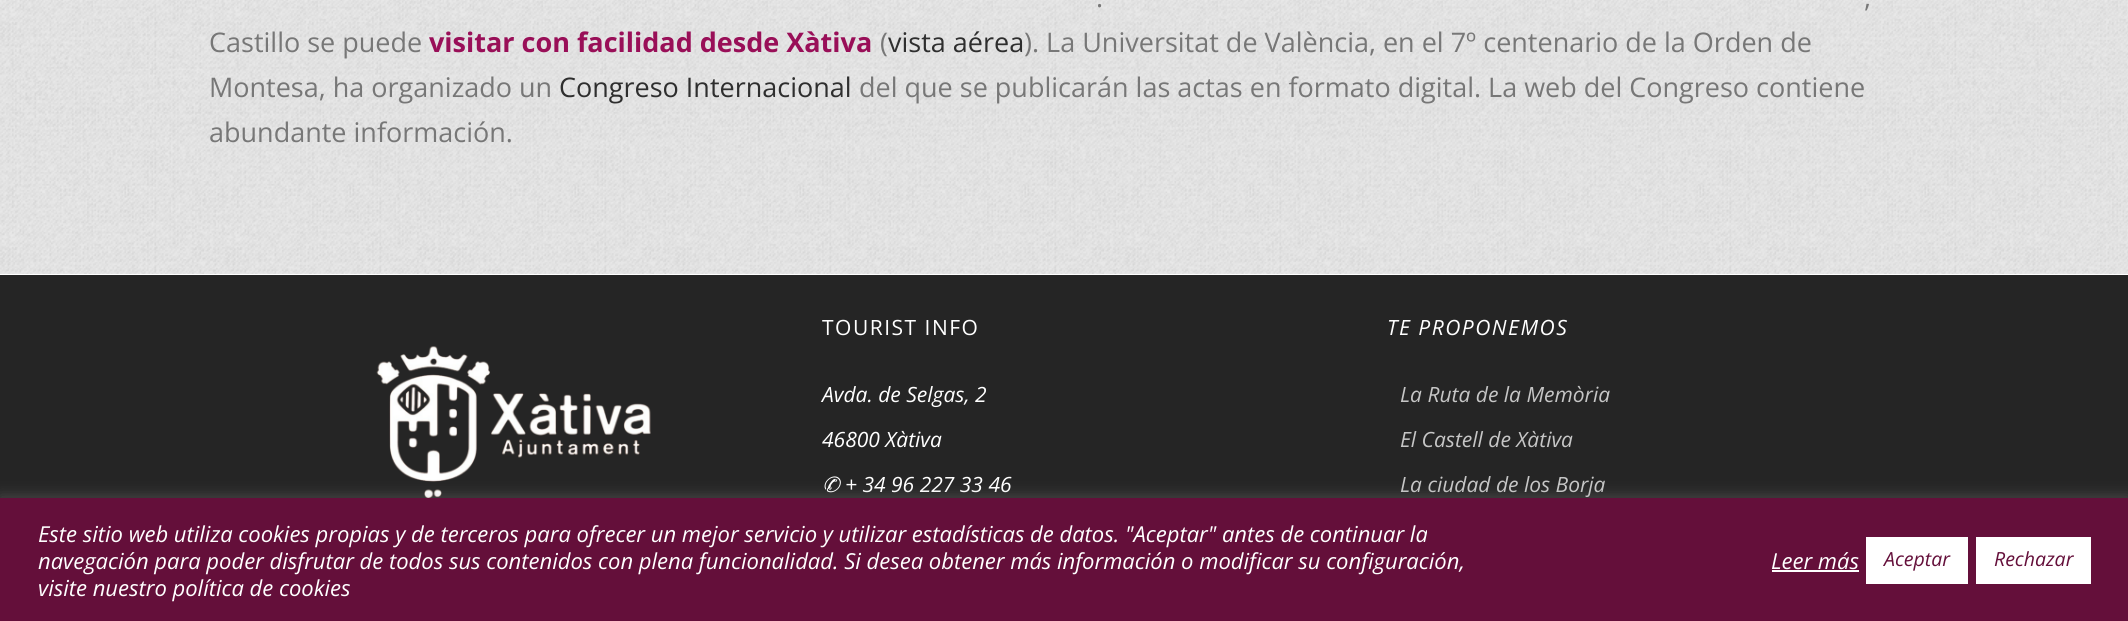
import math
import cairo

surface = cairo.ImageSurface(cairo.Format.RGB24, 2128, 621)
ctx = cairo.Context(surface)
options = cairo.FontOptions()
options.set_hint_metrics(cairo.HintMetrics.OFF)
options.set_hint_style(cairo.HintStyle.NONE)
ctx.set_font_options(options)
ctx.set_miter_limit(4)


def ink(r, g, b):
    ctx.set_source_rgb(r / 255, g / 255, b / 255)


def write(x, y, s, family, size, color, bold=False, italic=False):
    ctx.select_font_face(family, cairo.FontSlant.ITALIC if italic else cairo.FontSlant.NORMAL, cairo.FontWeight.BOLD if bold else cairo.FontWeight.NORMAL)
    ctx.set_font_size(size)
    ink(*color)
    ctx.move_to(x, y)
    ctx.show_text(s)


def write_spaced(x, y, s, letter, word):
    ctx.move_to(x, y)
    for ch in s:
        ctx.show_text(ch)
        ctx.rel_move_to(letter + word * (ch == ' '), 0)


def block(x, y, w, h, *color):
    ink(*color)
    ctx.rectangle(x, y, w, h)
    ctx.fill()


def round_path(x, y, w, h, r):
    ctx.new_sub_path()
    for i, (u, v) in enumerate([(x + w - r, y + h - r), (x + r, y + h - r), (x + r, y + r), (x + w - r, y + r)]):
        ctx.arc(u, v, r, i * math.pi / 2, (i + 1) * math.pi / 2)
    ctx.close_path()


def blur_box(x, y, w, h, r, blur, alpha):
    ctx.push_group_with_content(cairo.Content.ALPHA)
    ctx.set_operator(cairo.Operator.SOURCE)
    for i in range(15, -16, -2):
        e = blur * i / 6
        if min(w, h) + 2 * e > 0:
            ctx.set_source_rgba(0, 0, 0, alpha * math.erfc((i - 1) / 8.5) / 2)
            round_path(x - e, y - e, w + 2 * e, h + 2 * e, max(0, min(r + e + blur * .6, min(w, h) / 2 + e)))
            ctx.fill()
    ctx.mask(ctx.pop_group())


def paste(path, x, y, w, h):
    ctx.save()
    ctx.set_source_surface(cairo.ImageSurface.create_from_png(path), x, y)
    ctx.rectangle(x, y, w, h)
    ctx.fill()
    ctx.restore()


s1 = dict(family="Open Sans", size=27, color=(119, 119, 119))
s2 = dict(family="Open Sans", size=27, color=(153, 15, 88), bold=True)
s3 = dict(family="Open Sans", size=27, color=(46, 46, 46))
s4 = dict(family="Open Sans", size=21, color=(255, 255, 255), italic=True)
s5 = dict(family="DejaVu Sans", size=21, color=(255, 255, 255), italic=True)
s6 = dict(family="Open Sans", size=21, color=(198, 198, 198), italic=True)
s7 = dict(family="Open Sans", size=22, color=(255, 255, 255), italic=True)
s8 = dict(family="Open Sans", size=19.5, color=(100, 15, 58), italic=True)

ink(37, 37, 37)
ctx.paint()
block(0, 274, 2128, 1, 255, 255, 255)
paste("pic1.png", 0, 0, 2128, 274)
write(1096, 7, ".", **s1)
write(1864, 7, ",", **s1)
write(209, 52, "Castillo se puede", **s1)
write(429, 52, "visitar con facilidad desde Xàtiva", **s2)
write(880, 52, "(", **s1)
write(888, 52, "vista aérea", **s3)
write(1024, 52, "). La Universitat de València, en el 7º centenario de la Orden de", **s1)
write(209, 97, "Montesa, ha organizado un", **s1)
write(559, 97, "Congreso Internacional", **s3)
write(859, 97, "del que se publicarán las actas en formato digital. La web del Congreso contiene", **s1)
write(209, 142, "abundante información.", **s1)
paste("pic2.png", 376, 346, 275, 152)
ctx.set_font_size(21)
ink(255, 255, 255)
write_spaced(822, 335, "TOURIST INFO", 1.5, 0)
write(822, 402, "Avda. de Selgas, 2", **s4)
write(822, 447, "46800 Xàtiva", **s4)
write(822, 492, "✆", **s5)
write(845, 492, "+ 34 96 227 33 46", **s4)
write_spaced(1387, 335, "TE PROPONEMOS", 1.5, 0)
write(1400, 402, "La Ruta de la Memòria", **s6)
write(1400, 447, "El Castell de Xàtiva", **s6)
write(1400, 492, "La ciudad de los Borja", **s6)
ink(172, 171, 171)
blur_box(0, 497, 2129, 123, 0, 7.5, 0.3)
block(0, 498, 2128, 123, 100, 15, 58)
write(38, 542, "Este sitio web utiliza cookies propias y de terceros para ofrecer un mejor servicio y utilizar estadísticas de datos. \"Aceptar\" antes de continuar la", **s7)
write(38, 569, "navegación para poder disfrutar de todos sus contenidos con plena funcionalidad. Si desea obtener más información o modificar su configuración,", **s7)
write(38, 596, "visite nuestro política de cookies", **s7)
write(1771, 569, "Leer más", **s7)
block(1772, 570, 87, 2, 255, 255, 255)
block(1866, 537, 102, 47, 255, 255, 255)
write(1884, 566, "Aceptar", **s8)
block(1976, 537, 115, 47, 255, 255, 255)
write(1994, 566, "Rechazar", **s8)
surface.write_to_png("screenshot.png")
